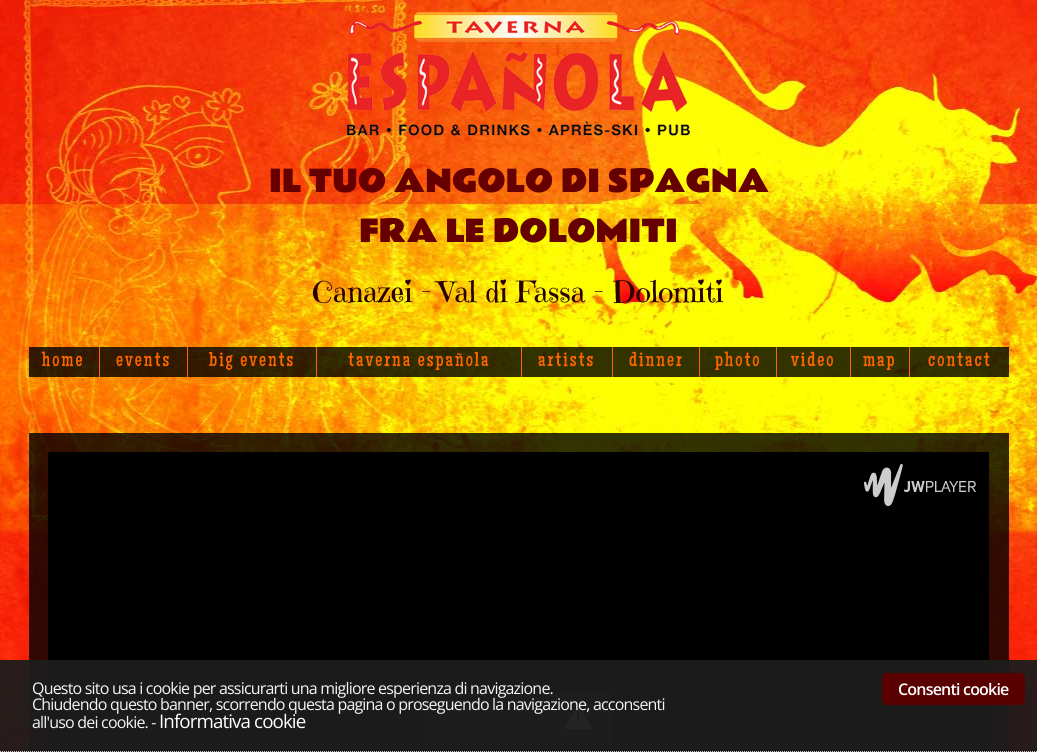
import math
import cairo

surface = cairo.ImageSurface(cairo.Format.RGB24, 1037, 752)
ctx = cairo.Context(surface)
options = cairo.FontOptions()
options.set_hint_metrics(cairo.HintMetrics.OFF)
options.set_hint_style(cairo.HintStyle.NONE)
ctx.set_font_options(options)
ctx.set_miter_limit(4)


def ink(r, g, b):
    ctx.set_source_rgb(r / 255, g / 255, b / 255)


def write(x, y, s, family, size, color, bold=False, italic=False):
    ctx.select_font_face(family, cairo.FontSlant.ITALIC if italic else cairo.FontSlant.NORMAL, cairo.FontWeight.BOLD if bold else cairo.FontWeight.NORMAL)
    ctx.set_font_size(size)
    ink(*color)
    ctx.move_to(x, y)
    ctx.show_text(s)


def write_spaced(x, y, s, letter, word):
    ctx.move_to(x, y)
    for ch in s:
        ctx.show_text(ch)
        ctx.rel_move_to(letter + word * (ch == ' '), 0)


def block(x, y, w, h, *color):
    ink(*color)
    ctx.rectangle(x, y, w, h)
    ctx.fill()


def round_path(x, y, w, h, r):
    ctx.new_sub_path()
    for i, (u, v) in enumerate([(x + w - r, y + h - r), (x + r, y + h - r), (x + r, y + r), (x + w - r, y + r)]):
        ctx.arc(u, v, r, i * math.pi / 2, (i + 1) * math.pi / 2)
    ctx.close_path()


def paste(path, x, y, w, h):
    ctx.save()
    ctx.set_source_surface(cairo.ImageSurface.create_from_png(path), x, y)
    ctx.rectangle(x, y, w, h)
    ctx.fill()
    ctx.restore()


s1 = dict(family="Rammetto One", size=30, color=(102, 0, 0))
s2 = dict(family="Emilys Candy", size=29.3, color=(40, 0, 0))

ink(255, 255, 255)
ctx.paint()
paste("pic1.png", 0, 0, 1037, 752)
paste("pic2.png", 346, 12, 344, 124)
write(269, 192, "IL TUO ANGOLO DI SPAGNA", **s1)
write(359, 242, "FRA LE DOLOMITI", **s1)
write(312, 302, "Canazei - Val di Fassa - Dolomiti", **s2)
ctx.set_source_rgba(0, 0, 0, 0.8)
ctx.rectangle(29, 347, 980, 30)
ctx.fill()
block(99, 347, 1, 30, 255, 102, 0)
ctx.select_font_face("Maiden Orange")
ctx.set_font_size(20)
write_spaced(42, 366, "home", 2, 0)
block(187, 347, 1, 30, 255, 102, 0)
write_spaced(116, 366, "events", 2, 0)
block(316, 347, 1, 30, 255, 102, 0)
write_spaced(209, 366, "big events", 2, 0)
block(521, 347, 1, 30, 255, 102, 0)
write_spaced(348, 366, "taverna española", 2, 0)
block(612, 347, 1, 30, 255, 102, 0)
write_spaced(538, 366, "artists", 2, 0)
block(699, 347, 1, 30, 255, 102, 0)
write_spaced(629, 366, "dinner", 2, 0)
block(776, 347, 1, 30, 255, 102, 0)
write_spaced(715, 366, "photo", 2, 0)
block(850, 347, 1, 30, 255, 102, 0)
write_spaced(791, 366, "video", 2, 0)
block(909, 347, 1, 30, 255, 102, 0)
write_spaced(863, 366, "map", 2, 0)
write_spaced(928, 366, "contact", 2, 0)
ctx.set_source_rgba(0, 0, 0, 0.8)
ctx.rectangle(29, 433, 980, 319)
ctx.fill()
block(48, 452, 941, 300, 0, 0, 0)
paste("pic3.png", 864, 464, 112, 42)
paste("pic4.png", 424, 691, 190, 52)
paste("pic5.png", 564, 705, 28, 25)
ctx.set_source_rgba(0.114, 0.114, 0.114, 0.95)
ctx.rectangle(0, 660, 1037, 92)
ctx.fill()
ctx.new_path()
ctx.move_to(0, 751.5)
ctx.line_to(1037, 751.5)
ink(204, 204, 204)
ctx.set_line_width(1)
ctx.set_dash([1, 1])
ctx.stroke()
ctx.select_font_face("Open Sans")
ctx.set_font_size(16)
ink(245, 245, 245)
write_spaced(32, 694, "Questo sito usa i cookie per assicurarti una migliore esperienza di navigazione.", -0.8, 0)
write_spaced(32, 710, "Chiudendo questo banner, scorrendo questa pagina o proseguendo la navigazione, acconsenti", -0.8, 0)
write_spaced(32, 728, "all'uso dei cookie. -", -0.8, 0)
ctx.set_font_size(18.75)
ink(255, 255, 255)
write_spaced(159, 728, "Informativa cookie", -0.9, 0)
ink(89, 0, 0)
round_path(882, 673, 143, 32, 5)
ctx.fill()
ctx.select_font_face("Open Sans SemiBold")
ctx.set_font_size(16)
ink(255, 255, 255)
write_spaced(898, 695, "Consenti cookie", -0.8, 0)
surface.write_to_png("screenshot.png")
